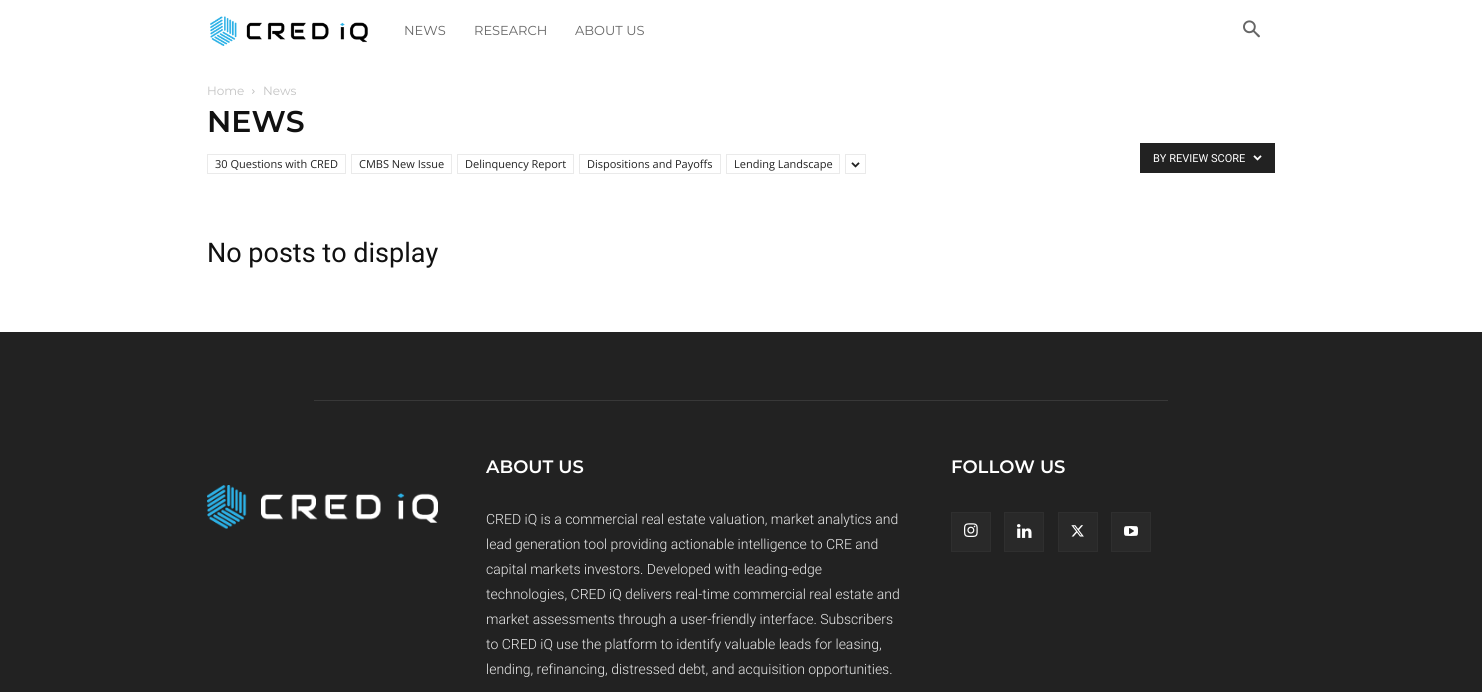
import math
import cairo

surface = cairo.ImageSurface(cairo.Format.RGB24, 1482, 692)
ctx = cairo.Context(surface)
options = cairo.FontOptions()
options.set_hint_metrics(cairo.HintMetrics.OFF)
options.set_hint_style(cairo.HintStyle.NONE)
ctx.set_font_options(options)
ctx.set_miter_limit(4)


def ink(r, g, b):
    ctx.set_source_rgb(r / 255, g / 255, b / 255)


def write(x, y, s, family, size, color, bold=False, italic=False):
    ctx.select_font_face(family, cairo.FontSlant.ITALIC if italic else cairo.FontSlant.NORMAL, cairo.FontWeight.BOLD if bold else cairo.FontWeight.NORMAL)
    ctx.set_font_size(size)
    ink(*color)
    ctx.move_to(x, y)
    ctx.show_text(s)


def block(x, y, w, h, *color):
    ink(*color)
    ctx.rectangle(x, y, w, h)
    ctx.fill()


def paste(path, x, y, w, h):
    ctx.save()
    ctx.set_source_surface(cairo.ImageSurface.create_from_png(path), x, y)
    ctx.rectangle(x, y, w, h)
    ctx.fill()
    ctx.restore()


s1 = dict(family="Montserrat", size=13, color=(102, 102, 102))
s2 = dict(family="Montserrat", size=12, color=(195, 195, 195))
s3 = dict(family="Montserrat SemiBold", size=30, color=(17, 17, 17))
s4 = dict(family="Open Sans", size=11, color=(34, 34, 34))
s5 = dict(family="Roboto", size=11, color=(255, 255, 255))
s6 = dict(family="Roboto", size=27, color=(17, 17, 17))
s7 = dict(family="Montserrat SemiBold", size=18, color=(255, 255, 255))
s8 = dict(family="Roboto Light", size=14, color=(234, 234, 234))

ink(255, 255, 255)
ctx.paint()
paste("pic1.png", 210, 16, 158, 30)
write(404, 35, "NEWS", **s1)
write(474, 35, "RESEARCH", **s1)
write(575, 35, "ABOUT US", **s1)
paste("pic2.png", 1243, 20, 17, 18)
write(207, 95, "Home", **s2)
paste("pic3.png", 252, 89, 3, 5)
write(263, 95, "News", **s2)
write(207, 132, "NEWS", **s3)
ctx.rectangle(207.5, 154.5, 138, 19)
ink(234, 234, 234)
ctx.set_line_width(1)
ctx.stroke()
write(215, 168, "30 Questions with CRED", **s4)
ctx.rectangle(351.5, 154.5, 100, 19)
ink(234, 234, 234)
ctx.stroke()
write(359, 168, "CMBS New Issue", **s4)
ctx.rectangle(457.5, 154.5, 116, 19)
ink(234, 234, 234)
ctx.stroke()
write(465, 168, "Delinquency Report", **s4)
ctx.rectangle(579.5, 154.5, 141, 19)
ink(234, 234, 234)
ctx.stroke()
write(587, 168, "Dispositions and Payoffs", **s4)
ctx.rectangle(726.5, 154.5, 113, 19)
ink(234, 234, 234)
ctx.stroke()
write(734, 168, "Lending Landscape", **s4)
ctx.rectangle(845.5, 154.5, 20, 19)
ink(234, 234, 234)
ctx.stroke()
paste("pic4.png", 851, 162, 9, 6)
block(1140, 143, 135, 30, 34, 34, 34)
write(1153, 162, "BY REVIEW SCORE", **s5)
paste("pic5.png", 1253, 155, 9, 6)
write(207, 262, "No posts to display", **s6)
block(0, 332, 1482, 360, 34, 34, 34)
block(314, 400, 854, 1, 56, 56, 56)
write(486, 473, "ABOUT US", **s7)
write(486, 524, "CRED iQ is a commercial real estate valuation, market analytics and", **s8)
write(486, 549, "lead generation tool providing actionable intelligence to CRE and", **s8)
write(486, 574, "capital markets investors. Developed with leading-edge", **s8)
write(486, 599, "technologies, CRED iQ delivers real-time commercial real estate and", **s8)
write(486, 624, "market assessments through a user-friendly interface. Subscribers", **s8)
write(486, 649, "to CRED iQ use the platform to identify valuable leads for leasing,", **s8)
write(486, 674, "lending, refinancing, distressed debt, and acquisition opportunities.", **s8)
write(951, 473, "FOLLOW US", **s7)
block(952, 513, 38, 38, 41, 41, 41)
paste("pic6.png", 964, 523, 14, 14)
ctx.rectangle(951.5, 512.5, 39, 39)
ink(47, 47, 47)
ctx.stroke()
block(1005, 513, 38, 38, 41, 41, 41)
paste("pic7.png", 1017, 524, 15, 14)
ctx.rectangle(1004.5, 512.5, 39, 39)
ink(47, 47, 47)
ctx.stroke()
block(1059, 513, 38, 38, 41, 41, 41)
paste("pic8.png", 1071, 525, 13, 12)
ctx.rectangle(1058.5, 512.5, 39, 39)
ink(47, 47, 47)
ctx.stroke()
block(1112, 513, 38, 38, 41, 41, 41)
paste("pic9.png", 1124, 526, 14, 10)
ctx.rectangle(1111.5, 512.5, 39, 39)
ink(47, 47, 47)
ctx.stroke()
paste("pic10.png", 207, 485, 231, 44)
surface.write_to_png("screenshot.png")
